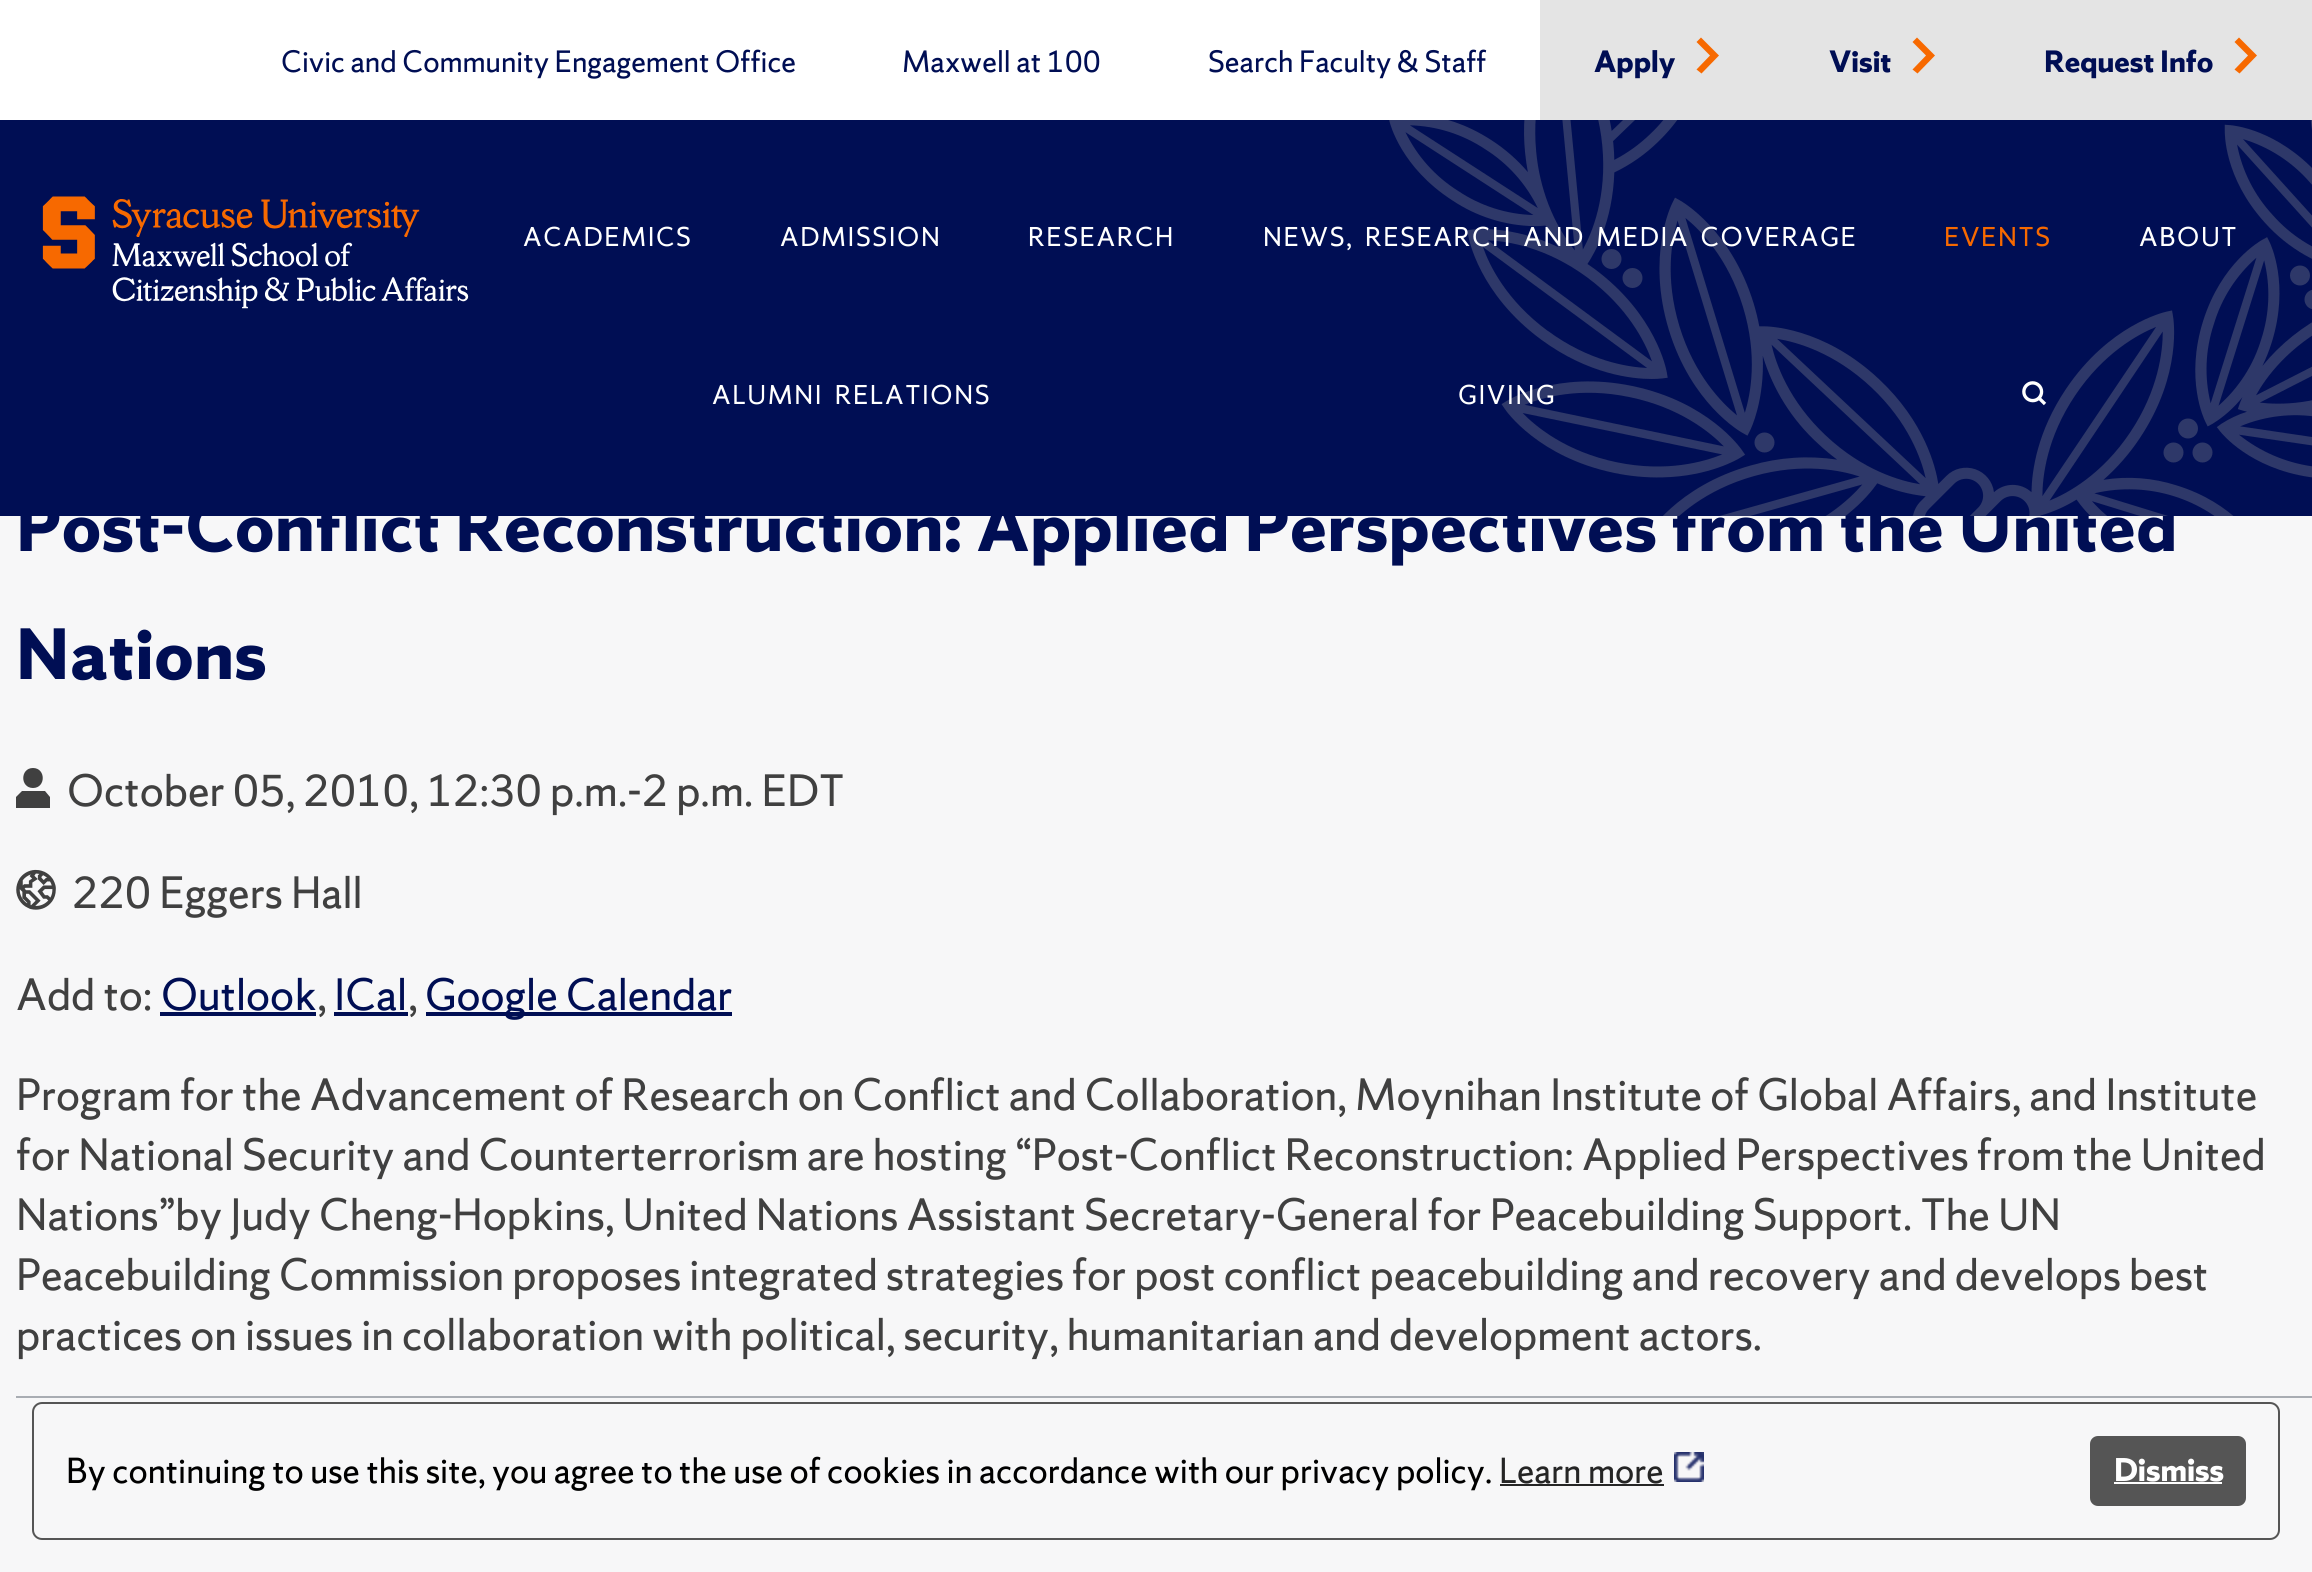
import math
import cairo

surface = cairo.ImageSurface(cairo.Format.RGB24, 2312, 1572)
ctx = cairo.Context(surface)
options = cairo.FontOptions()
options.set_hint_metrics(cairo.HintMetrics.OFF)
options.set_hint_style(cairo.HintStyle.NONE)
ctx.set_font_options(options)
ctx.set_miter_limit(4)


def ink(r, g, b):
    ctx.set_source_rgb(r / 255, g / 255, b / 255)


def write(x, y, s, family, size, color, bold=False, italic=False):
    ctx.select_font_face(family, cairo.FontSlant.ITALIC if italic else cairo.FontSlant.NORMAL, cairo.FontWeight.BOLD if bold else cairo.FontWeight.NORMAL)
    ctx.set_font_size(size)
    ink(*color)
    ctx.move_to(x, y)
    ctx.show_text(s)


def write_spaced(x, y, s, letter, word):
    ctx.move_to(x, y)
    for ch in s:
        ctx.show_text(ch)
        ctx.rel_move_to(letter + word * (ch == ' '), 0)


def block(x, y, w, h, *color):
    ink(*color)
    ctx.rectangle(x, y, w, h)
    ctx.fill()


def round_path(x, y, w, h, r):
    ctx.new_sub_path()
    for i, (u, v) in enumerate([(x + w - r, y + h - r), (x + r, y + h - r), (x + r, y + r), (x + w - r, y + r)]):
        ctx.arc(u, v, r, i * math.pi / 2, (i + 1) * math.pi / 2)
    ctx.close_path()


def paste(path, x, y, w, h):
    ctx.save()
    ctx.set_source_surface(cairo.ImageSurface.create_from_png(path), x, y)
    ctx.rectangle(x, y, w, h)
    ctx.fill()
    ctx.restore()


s1 = dict(family="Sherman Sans", size=27.25, color=(0, 14, 84))
s2 = dict(family="Sherman Sans", size=27.25, color=(0, 14, 84), bold=True)
s3 = dict(family="Sherman Sans", size=40, color=(64, 64, 64))
s4 = dict(family="Sherman Sans", size=40, color=(0, 14, 84))
s5 = dict(family="Sherman Sans", size=32, color=(0, 0, 0))
s6 = dict(family="Sherman Sans", size=32, color=(37, 37, 37))
s7 = dict(family="Sherman Sans", size=29, color=(255, 255, 255), bold=True)

ink(247, 247, 248)
ctx.paint()
block(0, 0, 1540, 120, 255, 255, 255)
write(281, 72, "Civic and Community Engagement Office", **s1)
write(902, 72, "Maxwell at 100", **s1)
write(1208, 72, "Search Faculty & Staff", **s1)
block(1540, 0, 772, 120, 228, 228, 228)
write(1594, 72, "Apply", **s2)
ink(247, 105, 0)
ctx.new_path()
ctx.move_to(1696.5, 42)
ctx.line_to(1710, 55.5)
ctx.line_to(1696.5, 69.5)
ctx.line_to(1701.5, 73.5)
ctx.line_to(1719, 55.5)
ctx.line_to(1701, 37.5)
ctx.close_path()
ctx.fill()
write(1829, 72, "Visit", **s2)
ink(247, 105, 0)
ctx.new_path()
ctx.move_to(1912.5, 42)
ctx.line_to(1926, 55.5)
ctx.line_to(1912.5, 69.5)
ctx.line_to(1917.5, 73.5)
ctx.line_to(1935, 55.5)
ctx.line_to(1917, 37.5)
ctx.close_path()
ctx.fill()
write(2044, 72, "Request Info", **s2)
ink(247, 105, 0)
ctx.new_path()
ctx.move_to(2234.5, 42)
ctx.line_to(2248, 55.5)
ctx.line_to(2234.5, 69.5)
ctx.line_to(2239.5, 73.5)
ctx.line_to(2257, 55.5)
ctx.line_to(2239, 37.5)
ctx.close_path()
ctx.fill()
block(0, 120, 2312, 396, 0, 14, 84)
ctx.set_font_size(64)
write_spaced(16, 551, "Post-Conflict Reconstruction: Applied Perspectives from the United", 0.95, 0)
paste("pic1.png", 1389, 120, 923, 396)
paste("pic2.png", 42, 196, 427, 113)
ctx.select_font_face("Sherman Sans")
ctx.set_font_size(24)
ink(255, 255, 255)
write_spaced(523, 246, "ACADEMICS", 1.6, 0)
write_spaced(780, 246, "ADMISSION", 1.6, 0)
write_spaced(1028, 246, "RESEARCH", 1.6, 0)
write_spaced(1263, 246, "NEWS, RESEARCH AND MEDIA COVERAGE", 1.6, 5)
ink(247, 105, 0)
write_spaced(1944, 246, "EVENTS", 1.6, 0)
ink(255, 255, 255)
write_spaced(2139, 246, "ABOUT", 1.6, 0)
write_spaced(712, 404, "ALUMNI RELATIONS", 1.6, 5)
write_spaced(1458, 404, "GIVING", 1.6, 0)
paste("pic3.png", 2022, 381, 25, 25)
ctx.select_font_face("Sherman Sans", cairo.FontSlant.NORMAL, cairo.FontWeight.BOLD)
ctx.set_font_size(64)
ink(0, 14, 84)
write_spaced(16, 679, "Nations", 0.95, 0)
ink(64, 64, 64)
ctx.new_path()
ctx.move_to(33, 788)
ctx.curve_to(46, 788, 46, 768, 33, 768)
ctx.curve_to(20, 768, 20, 788, 33, 788)
ctx.close_path()
ctx.move_to(45, 791)
ctx.line_to(22, 791)
ctx.line_to(16, 797)
ctx.line_to(16, 808)
ctx.line_to(50, 808)
ctx.line_to(50, 797)
ctx.close_path()
ctx.fill()
write(67, 806, "October 05, 2010, 12:30 p.m.-2 p.m. EDT", **s3)
paste("pic4.png", 16, 869, 40, 41)
write(72, 908, "220 Eggers Hall", **s3)
write(16, 1010, "Add to:", **s3)
write(161, 1010, "Outlook", **s4)
block(160, 1012, 156, 4, 0, 14, 84)
write(317, 1010, ",", **s3)
write(334, 1010, "ICal", **s4)
block(334, 1012, 74, 4, 0, 14, 84)
write(408, 1010, ",", **s3)
block(426, 1012, 306, 4, 0, 14, 84)
write(425, 1010, "Google Calendar", **s4)
write(16, 1110, "Program for the Advancement of Research on Conflict and Collaboration, Moynihan Institute of Global Affairs, and Institute", **s3)
write(16, 1170, "for National Security and Counterterrorism are hosting “Post-Conflict Reconstruction: Applied Perspectives from the United", **s3)
write(16, 1230, "Nations”by Judy Cheng-Hopkins, United Nations Assistant Secretary-General for Peacebuilding Support. The UN", **s3)
write(16, 1290, "Peacebuilding Commission proposes integrated strategies for post conflict peacebuilding and recovery and develops best", **s3)
write(16, 1350, "practices on issues in collaboration with political, security, humanitarian and development actors.", **s3)
block(16, 1396, 2296, 2, 169, 173, 179)
round_path(33, 1403, 2246, 136, 9)
ink(85, 85, 85)
ctx.stroke()
write(66, 1483, "By continuing to use this site, you agree to the use of cookies in accordance with our privacy policy.", **s5)
write(1499, 1483, "Learn more", **s6)
block(1500, 1484, 164, 2, 37, 37, 37)
paste("pic5.png", 1674, 1452, 30, 30)
ink(85, 85, 85)
round_path(2090, 1436, 156, 70, 8)
ctx.fill()
write(2114, 1481, "Dismiss", **s7)
block(2114, 1482, 108, 2, 255, 255, 255)
surface.write_to_png("screenshot.png")
